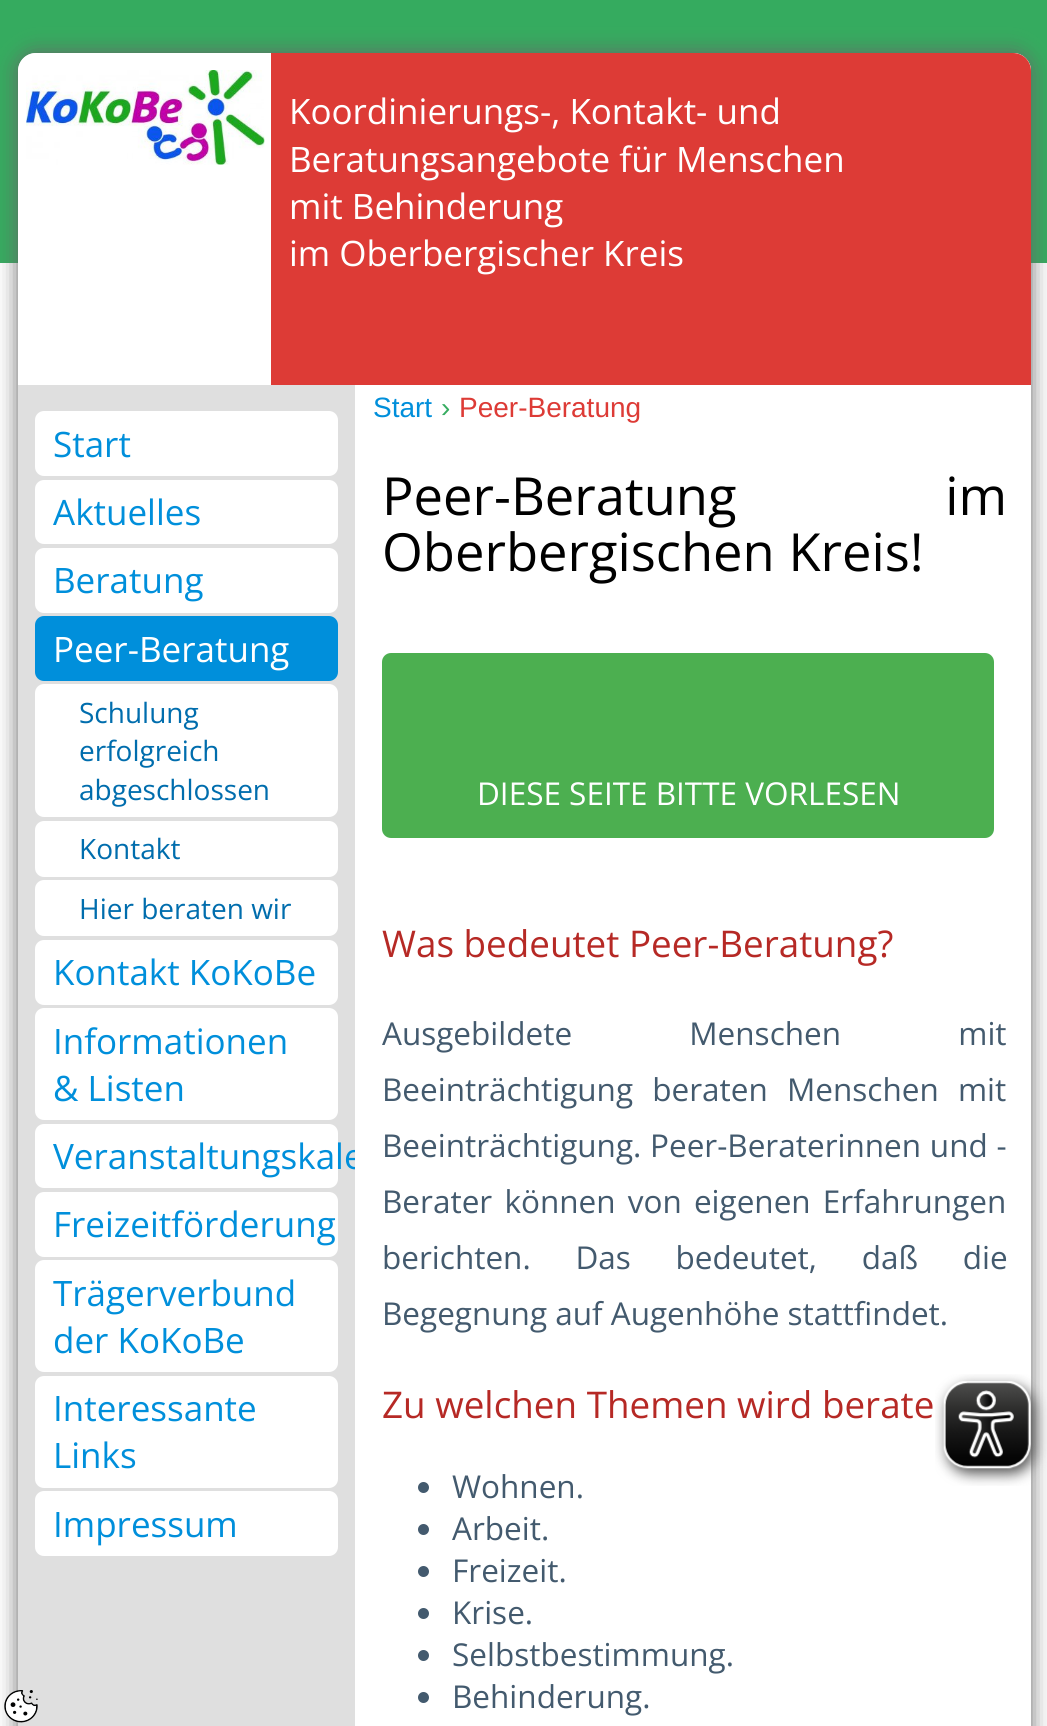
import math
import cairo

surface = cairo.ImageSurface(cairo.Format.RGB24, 1047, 1726)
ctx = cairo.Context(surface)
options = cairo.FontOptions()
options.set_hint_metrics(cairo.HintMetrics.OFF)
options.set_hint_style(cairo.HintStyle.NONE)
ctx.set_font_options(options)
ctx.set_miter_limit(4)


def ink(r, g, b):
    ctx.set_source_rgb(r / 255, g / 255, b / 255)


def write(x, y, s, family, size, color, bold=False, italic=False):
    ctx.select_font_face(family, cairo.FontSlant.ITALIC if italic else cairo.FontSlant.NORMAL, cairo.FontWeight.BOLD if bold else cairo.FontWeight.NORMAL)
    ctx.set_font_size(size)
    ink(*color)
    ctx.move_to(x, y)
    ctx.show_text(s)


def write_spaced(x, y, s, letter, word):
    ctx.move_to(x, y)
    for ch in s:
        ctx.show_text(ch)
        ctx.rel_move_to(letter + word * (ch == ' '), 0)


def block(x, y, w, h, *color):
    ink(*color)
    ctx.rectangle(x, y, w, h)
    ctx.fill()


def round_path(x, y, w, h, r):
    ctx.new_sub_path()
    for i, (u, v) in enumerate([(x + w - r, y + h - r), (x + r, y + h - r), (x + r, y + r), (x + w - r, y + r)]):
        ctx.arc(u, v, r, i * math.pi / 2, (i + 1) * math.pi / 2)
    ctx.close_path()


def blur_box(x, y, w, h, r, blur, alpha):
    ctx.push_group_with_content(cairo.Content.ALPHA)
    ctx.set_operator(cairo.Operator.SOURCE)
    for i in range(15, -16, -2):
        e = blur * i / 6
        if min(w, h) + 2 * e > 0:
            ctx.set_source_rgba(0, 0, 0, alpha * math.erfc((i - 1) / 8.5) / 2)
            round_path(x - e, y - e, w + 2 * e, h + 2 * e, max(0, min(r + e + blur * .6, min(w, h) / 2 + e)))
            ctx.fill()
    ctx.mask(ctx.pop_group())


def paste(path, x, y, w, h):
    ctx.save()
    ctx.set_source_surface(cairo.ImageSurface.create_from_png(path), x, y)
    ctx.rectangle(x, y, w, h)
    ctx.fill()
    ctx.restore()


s1 = dict(family="Open Sans", size=35, color=(255, 255, 255))
s2 = dict(family="Open Sans", size=35, color=(0, 143, 219))
s3 = dict(family="Open Sans", size=28, color=(0, 109, 173))
s4 = dict(family="Liberation Sans", size=28, color=(0, 143, 219))
s5 = dict(family="Liberation Sans", size=28, color=(54, 172, 96))
s6 = dict(family="Liberation Sans", size=28, color=(221, 59, 54))
s7 = dict(family="Open Sans", size=52.5, color=(0, 0, 0))
s8 = dict(family="Open Sans", size=31.5, color=(255, 255, 255))
s9 = dict(family="Open Sans", size=36.8, color=(182, 41, 37))
s10 = dict(family="Open Sans", size=31.5, color=(67, 90, 110))

ink(255, 255, 255)
ctx.paint()
block(0, 0, 1047, 263, 53, 171, 95)
ink(102, 102, 102)
blur_box(18, 53, 1013, 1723, 18, 10.5, 1)
ink(223, 223, 223)
round_path(18, 53, 1013, 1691, 18)
ctx.fill()
ink(255, 255, 255)
ctx.new_path()
ctx.move_to(36, 53)
ctx.line_to(1013, 53)
ctx.curve_to(1023, 53, 1031, 61, 1031, 71)
ctx.line_to(1031, 385)
ctx.line_to(18, 385)
ctx.line_to(18, 71)
ctx.curve_to(18, 61, 26, 53, 36, 53)
ctx.close_path()
ctx.fill()
paste("pic1.png", 26, 70, 239, 95)
ink(221, 59, 54)
ctx.new_path()
ctx.move_to(271, 53)
ctx.line_to(1013, 53)
ctx.curve_to(1023, 53, 1031, 61, 1031, 71)
ctx.line_to(1031, 385)
ctx.line_to(271, 385)
ctx.close_path()
ctx.fill()
write(289, 124, "Koordinierungs-, Kontakt- und", **s1)
write(289, 172, "Beratungsangebote für Menschen", **s1)
write(289, 219, "mit Behinderung", **s1)
write(289, 266, "im Oberbergischer Kreis", **s1)
round_path(35, 411, 303, 65, 9)
ctx.fill()
write(53, 457, "Start", **s2)
ink(255, 255, 255)
round_path(35, 480, 303, 64, 9)
ctx.fill()
write(53, 525, "Aktuelles", **s2)
ink(255, 255, 255)
round_path(35, 548, 303, 65, 9)
ctx.fill()
write(53, 593, "Beratung", **s2)
round_path(35, 616, 303, 65, 9)
ctx.fill()
write(53, 662, "Peer-Beratung", **s1)
round_path(35, 684, 303, 133, 9)
ctx.fill()
write(79, 723, "Schulung", **s3)
write(79, 761, "erfolgreich", **s3)
write(79, 800, "abgeschlossen", **s3)
ink(255, 255, 255)
round_path(35, 821, 303, 56, 9)
ctx.fill()
write(79, 859, "Kontakt", **s3)
ink(255, 255, 255)
round_path(35, 880, 303, 56, 9)
ctx.fill()
write(79, 919, "Hier beraten wir", **s3)
ink(255, 255, 255)
round_path(35, 940, 303, 65, 9)
ctx.fill()
write(53, 985, "Kontakt KoKoBe", **s2)
ink(255, 255, 255)
round_path(35, 1008, 303, 112, 9)
ctx.fill()
write(53, 1054, "Informationen", **s2)
write(53, 1101, "& Listen", **s2)
ink(255, 255, 255)
round_path(35, 1124, 303, 64, 9)
ctx.fill()
write(53, 1169, "Veranstaltungskale", **s2)
ink(255, 255, 255)
round_path(35, 1192, 303, 65, 9)
ctx.fill()
write(53, 1237, "Freizeitförderung", **s2)
ink(255, 255, 255)
round_path(35, 1260, 303, 112, 9)
ctx.fill()
write(53, 1306, "Trägerverbund", **s2)
write(53, 1353, "der KoKoBe", **s2)
ink(255, 255, 255)
round_path(35, 1376, 303, 112, 9)
ctx.fill()
write(53, 1421, "Interessante", **s2)
write(53, 1468, "Links", **s2)
ink(255, 255, 255)
round_path(35, 1491, 303, 65, 9)
ctx.fill()
write(53, 1537, "Impressum", **s2)
block(355, 385, 676, 1341, 255, 255, 255)
write(373, 417, "Start", **s4)
write(441, 417, "›", **s5)
write(459, 417, "Peer-Beratung", **s6)
ctx.select_font_face("Open Sans")
ctx.set_font_size(52.5)
ink(0, 0, 0)
write_spaced(382, 515, "Peer-Beratung im", 0, 195)
write(382, 571, "Oberbergischen Kreis!", **s7)
ink(76, 175, 80)
round_path(382, 653, 612, 185, 9)
ctx.fill()
write(477, 805, "DIESE SEITE BITTE VORLESEN", **s8)
write(382, 957, "Was bedeutet Peer-Beratung?", **s9)
ctx.set_font_size(31.5)
ink(67, 90, 110)
write_spaced(382, 1045, "Ausgebildete Menschen mit", 0, 109)
write_spaced(382, 1101, "Beeinträchtigung beraten Menschen mit", 0, 11)
write_spaced(382, 1157, "Beeinträchtigung. Peer-Beraterinnen und -", 0, 0.5)
write_spaced(382, 1213, "Berater können von eigenen Erfahrungen", 0, 4)
write_spaced(382, 1269, "berichten. Das bedeutet, daß die", 0, 36.5)
write(382, 1325, "Begegnung auf Augenhöhe stattfindet.", **s10)
write(382, 1418, "Zu welchen Themen wird berate", **s9)
ink(67, 90, 110)
ctx.new_path()
ctx.arc(423.5, 1487.5, 5.5, 0, 2 * math.pi)
ctx.fill()
write(452, 1498, "Wohnen.", **s10)
ctx.new_path()
ctx.arc(423.5, 1529.5, 5.5, 0, 2 * math.pi)
ctx.fill()
write(452, 1540, "Arbeit.", **s10)
ctx.new_path()
ctx.arc(423.5, 1571.5, 5.5, 0, 2 * math.pi)
ctx.fill()
write(452, 1582, "Freizeit.", **s10)
ctx.new_path()
ctx.arc(423.5, 1613.5, 5.5, 0, 2 * math.pi)
ctx.fill()
write(452, 1624, "Krise.", **s10)
ctx.new_path()
ctx.arc(423.5, 1655.5, 5.5, 0, 2 * math.pi)
ctx.fill()
write(452, 1666, "Selbstbestimmung.", **s10)
ctx.new_path()
ctx.arc(423.5, 1697.5, 5.5, 0, 2 * math.pi)
ctx.fill()
write(452, 1708, "Behinderung.", **s10)
paste("pic2.png", 935, 1374, 112, 112)
paste("pic3.png", 4, 1690, 34, 33)
surface.write_to_png("screenshot.png")
